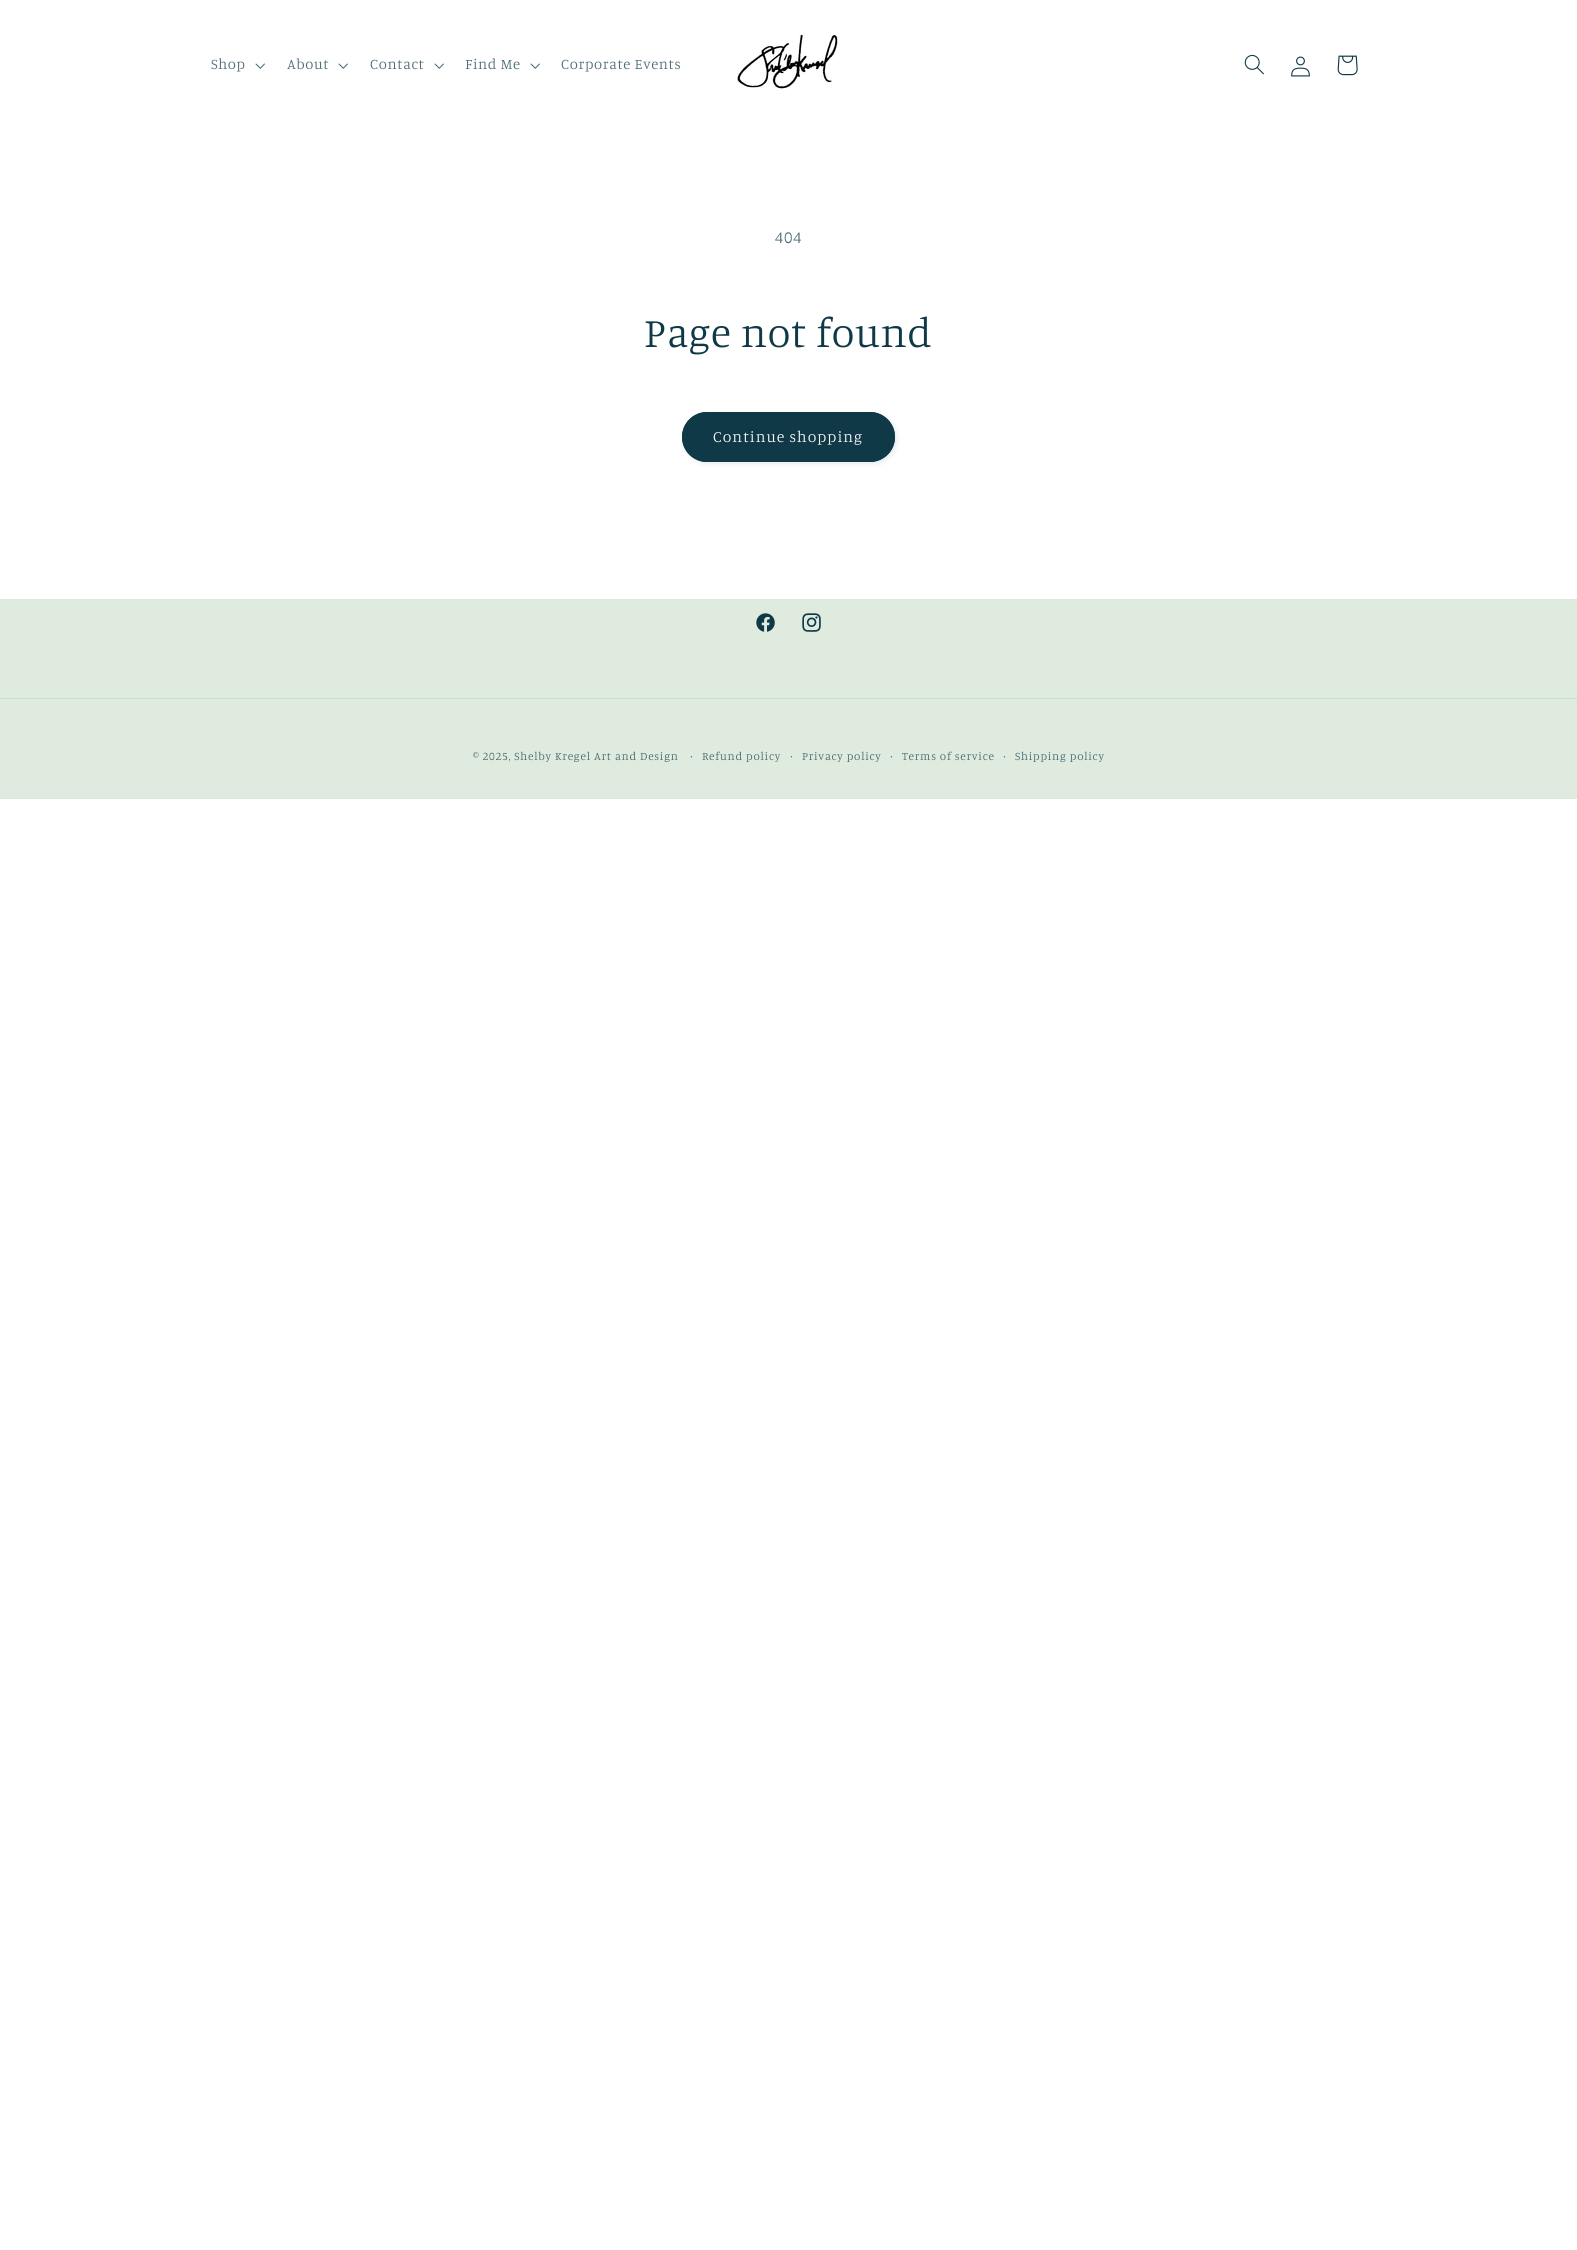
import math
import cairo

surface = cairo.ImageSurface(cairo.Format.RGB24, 1577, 2250)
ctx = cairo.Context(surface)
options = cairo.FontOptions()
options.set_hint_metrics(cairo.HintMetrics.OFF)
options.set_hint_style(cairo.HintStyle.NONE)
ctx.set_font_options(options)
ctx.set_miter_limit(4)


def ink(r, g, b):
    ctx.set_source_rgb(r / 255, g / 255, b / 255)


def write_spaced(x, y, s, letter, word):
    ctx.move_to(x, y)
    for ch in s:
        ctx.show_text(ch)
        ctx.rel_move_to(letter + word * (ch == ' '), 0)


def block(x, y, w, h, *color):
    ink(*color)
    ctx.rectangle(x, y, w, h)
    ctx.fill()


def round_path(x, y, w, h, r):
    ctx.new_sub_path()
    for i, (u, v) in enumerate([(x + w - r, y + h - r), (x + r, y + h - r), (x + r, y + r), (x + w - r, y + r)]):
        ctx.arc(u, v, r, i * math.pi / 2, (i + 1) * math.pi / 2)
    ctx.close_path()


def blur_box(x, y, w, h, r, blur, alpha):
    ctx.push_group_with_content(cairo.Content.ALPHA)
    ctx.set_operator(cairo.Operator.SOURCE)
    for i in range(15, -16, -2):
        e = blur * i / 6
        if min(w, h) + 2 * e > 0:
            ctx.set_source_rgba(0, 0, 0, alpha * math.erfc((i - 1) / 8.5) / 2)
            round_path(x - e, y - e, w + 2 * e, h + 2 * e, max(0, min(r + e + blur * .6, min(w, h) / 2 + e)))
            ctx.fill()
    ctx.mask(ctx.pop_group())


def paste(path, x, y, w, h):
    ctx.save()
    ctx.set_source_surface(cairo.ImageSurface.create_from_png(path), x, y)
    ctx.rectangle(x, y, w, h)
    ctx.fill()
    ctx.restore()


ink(255, 255, 255)
ctx.paint()
ctx.select_font_face("Manuale Light")
ctx.set_font_size(14.75)
ink(76, 107, 118)
write_spaced(211, 69, "Shop", 0.6, 0)
paste("pic1.png", 255, 63, 10, 6)
write_spaced(287, 69, "About", 0.6, 0)
paste("pic1.png", 338, 63, 10, 6)
write_spaced(370, 69, "Contact", 0.6, 0)
paste("pic1.png", 434, 63, 10, 6)
write_spaced(465, 69, "Find Me", 0.6, 0)
paste("pic1.png", 530, 63, 10, 6)
write_spaced(561, 69, "Corporate Events", 0.6, 0)
paste("pic2.png", 737, 34, 102, 57)
paste("pic3.png", 1244, 54, 20, 21)
paste("pic4.png", 1291, 56, 19, 21)
paste("pic5.png", 1337, 55, 21, 21)
ctx.set_font_size(17)
write_spaced(775, 243, "404", 0.6, 0)
ctx.set_font_size(42)
ink(16, 57, 72)
write_spaced(644, 347, "Page not found", 0.6, 0)
ink(16, 57, 72)
blur_box(684, 414, 213, 50, 25, 2.5, 0.1)
ink(16, 57, 72)
round_path(682, 412, 213, 50, 25)
ctx.fill()
round_path(682.5, 412.5, 212, 49, 24.5)
ctx.set_line_width(1)
ctx.stroke()
ctx.set_font_size(15.75)
ink(252, 252, 252)
write_spaced(713, 442, "Continue shopping", 1, 0)
block(0, 599, 1577, 200, 223, 235, 222)
paste("pic6.png", 756, 613, 19, 19)
paste("pic7.png", 802, 613, 19, 19)
block(0, 698, 1577, 1, 206, 221, 210)
ctx.set_font_size(11.5)
ink(68, 102, 110)
write_spaced(473, 760, "© 2025, Shelby Kregel Art and Design", 0.75, 0)
ctx.set_font_size(13)
write_spaced(690, 760, "·", 0.75, 0)
ctx.set_font_size(11.5)
write_spaced(702, 760, "Refund policy", 0.75, 0)
ctx.set_font_size(13)
write_spaced(790, 760, "·", 0.75, 0)
ctx.set_font_size(11.5)
write_spaced(802, 760, "Privacy policy", 0.75, 0)
ctx.set_font_size(13)
write_spaced(890, 760, "·", 0.75, 0)
ctx.set_font_size(11.5)
write_spaced(902, 760, "Terms of service", 0.75, 0)
ctx.set_font_size(13)
write_spaced(1003, 760, "·", 0.75, 0)
ctx.set_font_size(11.5)
write_spaced(1015, 760, "Shipping policy", 0.75, 0)
surface.write_to_png("screenshot.png")
